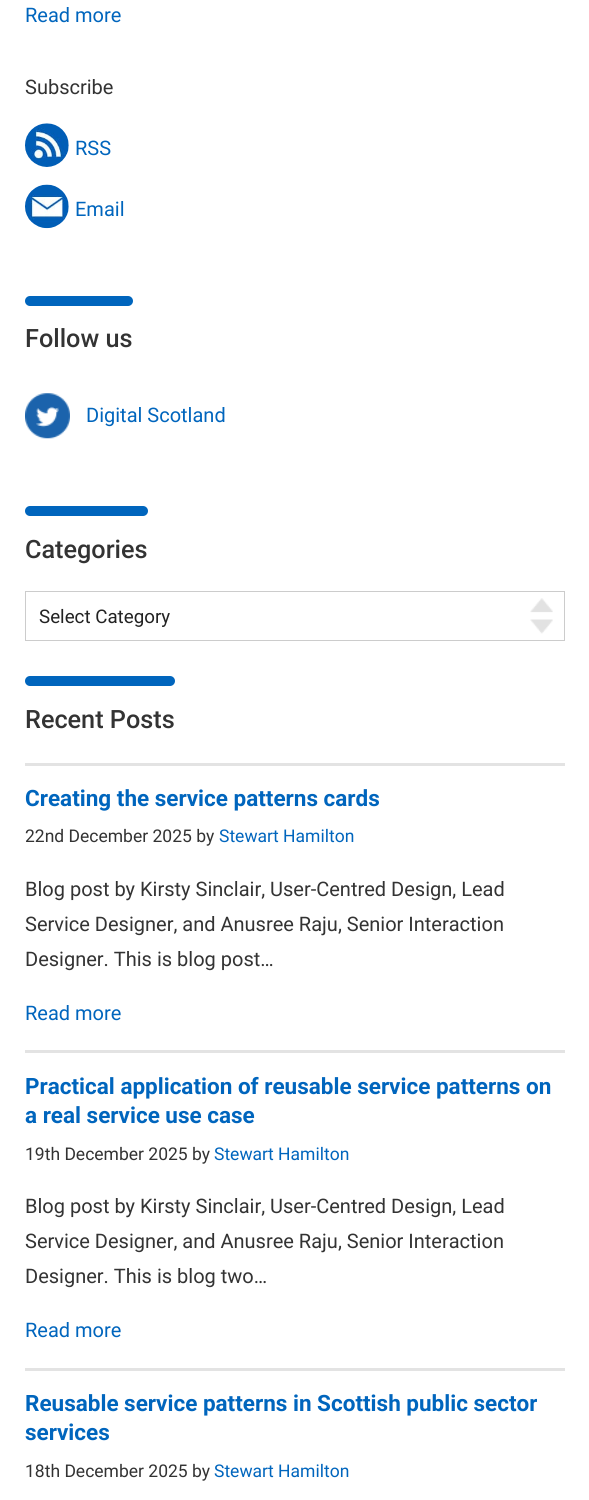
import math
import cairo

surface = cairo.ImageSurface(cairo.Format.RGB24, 589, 1500)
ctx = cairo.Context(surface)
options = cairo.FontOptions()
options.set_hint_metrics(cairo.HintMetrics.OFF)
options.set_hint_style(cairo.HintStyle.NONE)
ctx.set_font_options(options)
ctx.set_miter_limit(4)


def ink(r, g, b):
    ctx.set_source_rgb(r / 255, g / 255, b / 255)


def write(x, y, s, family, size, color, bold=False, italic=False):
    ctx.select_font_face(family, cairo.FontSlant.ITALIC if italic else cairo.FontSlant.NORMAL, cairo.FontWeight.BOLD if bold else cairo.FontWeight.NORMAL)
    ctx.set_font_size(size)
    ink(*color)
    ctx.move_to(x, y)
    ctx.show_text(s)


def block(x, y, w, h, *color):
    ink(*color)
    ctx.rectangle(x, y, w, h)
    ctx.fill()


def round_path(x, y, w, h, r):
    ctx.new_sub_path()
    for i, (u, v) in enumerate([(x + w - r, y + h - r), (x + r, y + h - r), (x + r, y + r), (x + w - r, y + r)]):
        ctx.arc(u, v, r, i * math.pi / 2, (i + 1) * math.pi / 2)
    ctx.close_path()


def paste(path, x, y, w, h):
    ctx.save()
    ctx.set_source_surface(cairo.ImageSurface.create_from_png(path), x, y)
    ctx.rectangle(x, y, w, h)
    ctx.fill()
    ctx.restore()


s1 = dict(family="Roboto", size=20, color=(0, 101, 189))
s2 = dict(family="Roboto", size=20, color=(51, 51, 51))
s3 = dict(family="Roboto Medium", size=25.25, color=(51, 51, 51))
s4 = dict(family="Roboto", size=18.75, color=(34, 34, 34))
s5 = dict(family="Roboto", size=22.5, color=(0, 101, 189), bold=True)
s6 = dict(family="Roboto", size=17.5, color=(51, 51, 51))
s7 = dict(family="Roboto", size=17.5, color=(0, 101, 189))

ink(255, 255, 255)
ctx.paint()
write(25, 22, "Read more", **s1)
write(25, 94, "Subscribe", **s2)
paste("pic1.png", 25, 123, 44, 44)
write(75, 155, "RSS", **s1)
paste("pic2.png", 25, 184, 44, 45)
write(75, 216, "Email", **s1)
round_path(25, 296, 108, 10, 5)
ctx.fill()
write(25, 347, "Follow us", **s3)
paste("pic3.png", 25, 393, 45, 46)
write(86, 422, "Digital Scotland", **s1)
round_path(25, 506, 123, 10, 5)
ctx.fill()
write(25, 558, "Categories", **s3)
paste("pic4.png", 530, 598, 23, 36)
ctx.rectangle(25.5, 591.5, 539, 49)
ink(204, 204, 204)
ctx.set_line_width(1)
ctx.stroke()
write(39, 623, "Select Category", **s4)
ink(0, 101, 189)
round_path(25, 676, 150, 10, 5)
ctx.fill()
write(25, 728, "Recent Posts", **s3)
block(25, 763, 540, 3, 227, 227, 227)
write(25, 806, "Creating the service patterns cards", **s5)
write(25, 842, "22nd December 2025 by", **s6)
write(219, 842, "Stewart Hamilton", **s7)
write(25, 896, "Blog post by Kirsty Sinclair, User-Centred Design, Lead", **s2)
write(25, 931, "Service Designer, and Anusree Raju, Senior Interaction", **s2)
write(25, 966, "Designer. This is blog post…", **s2)
write(25, 1020, "Read more", **s1)
block(25, 1050, 540, 3, 227, 227, 227)
write(25, 1094, "Practical application of reusable service patterns on", **s5)
write(25, 1123, "a real service use case", **s5)
write(25, 1160, "19th December 2025 by", **s6)
write(214, 1160, "Stewart Hamilton", **s7)
write(25, 1213, "Blog post by Kirsty Sinclair, User-Centred Design, Lead", **s2)
write(25, 1248, "Service Designer, and Anusree Raju, Senior Interaction", **s2)
write(25, 1283, "Designer. This is blog two…", **s2)
write(25, 1337, "Read more", **s1)
block(25, 1368, 540, 3, 227, 227, 227)
write(25, 1411, "Reusable service patterns in Scottish public sector", **s5)
write(25, 1440, "services", **s5)
write(25, 1477, "18th December 2025 by", **s6)
write(214, 1477, "Stewart Hamilton", **s7)
surface.write_to_png("screenshot.png")
